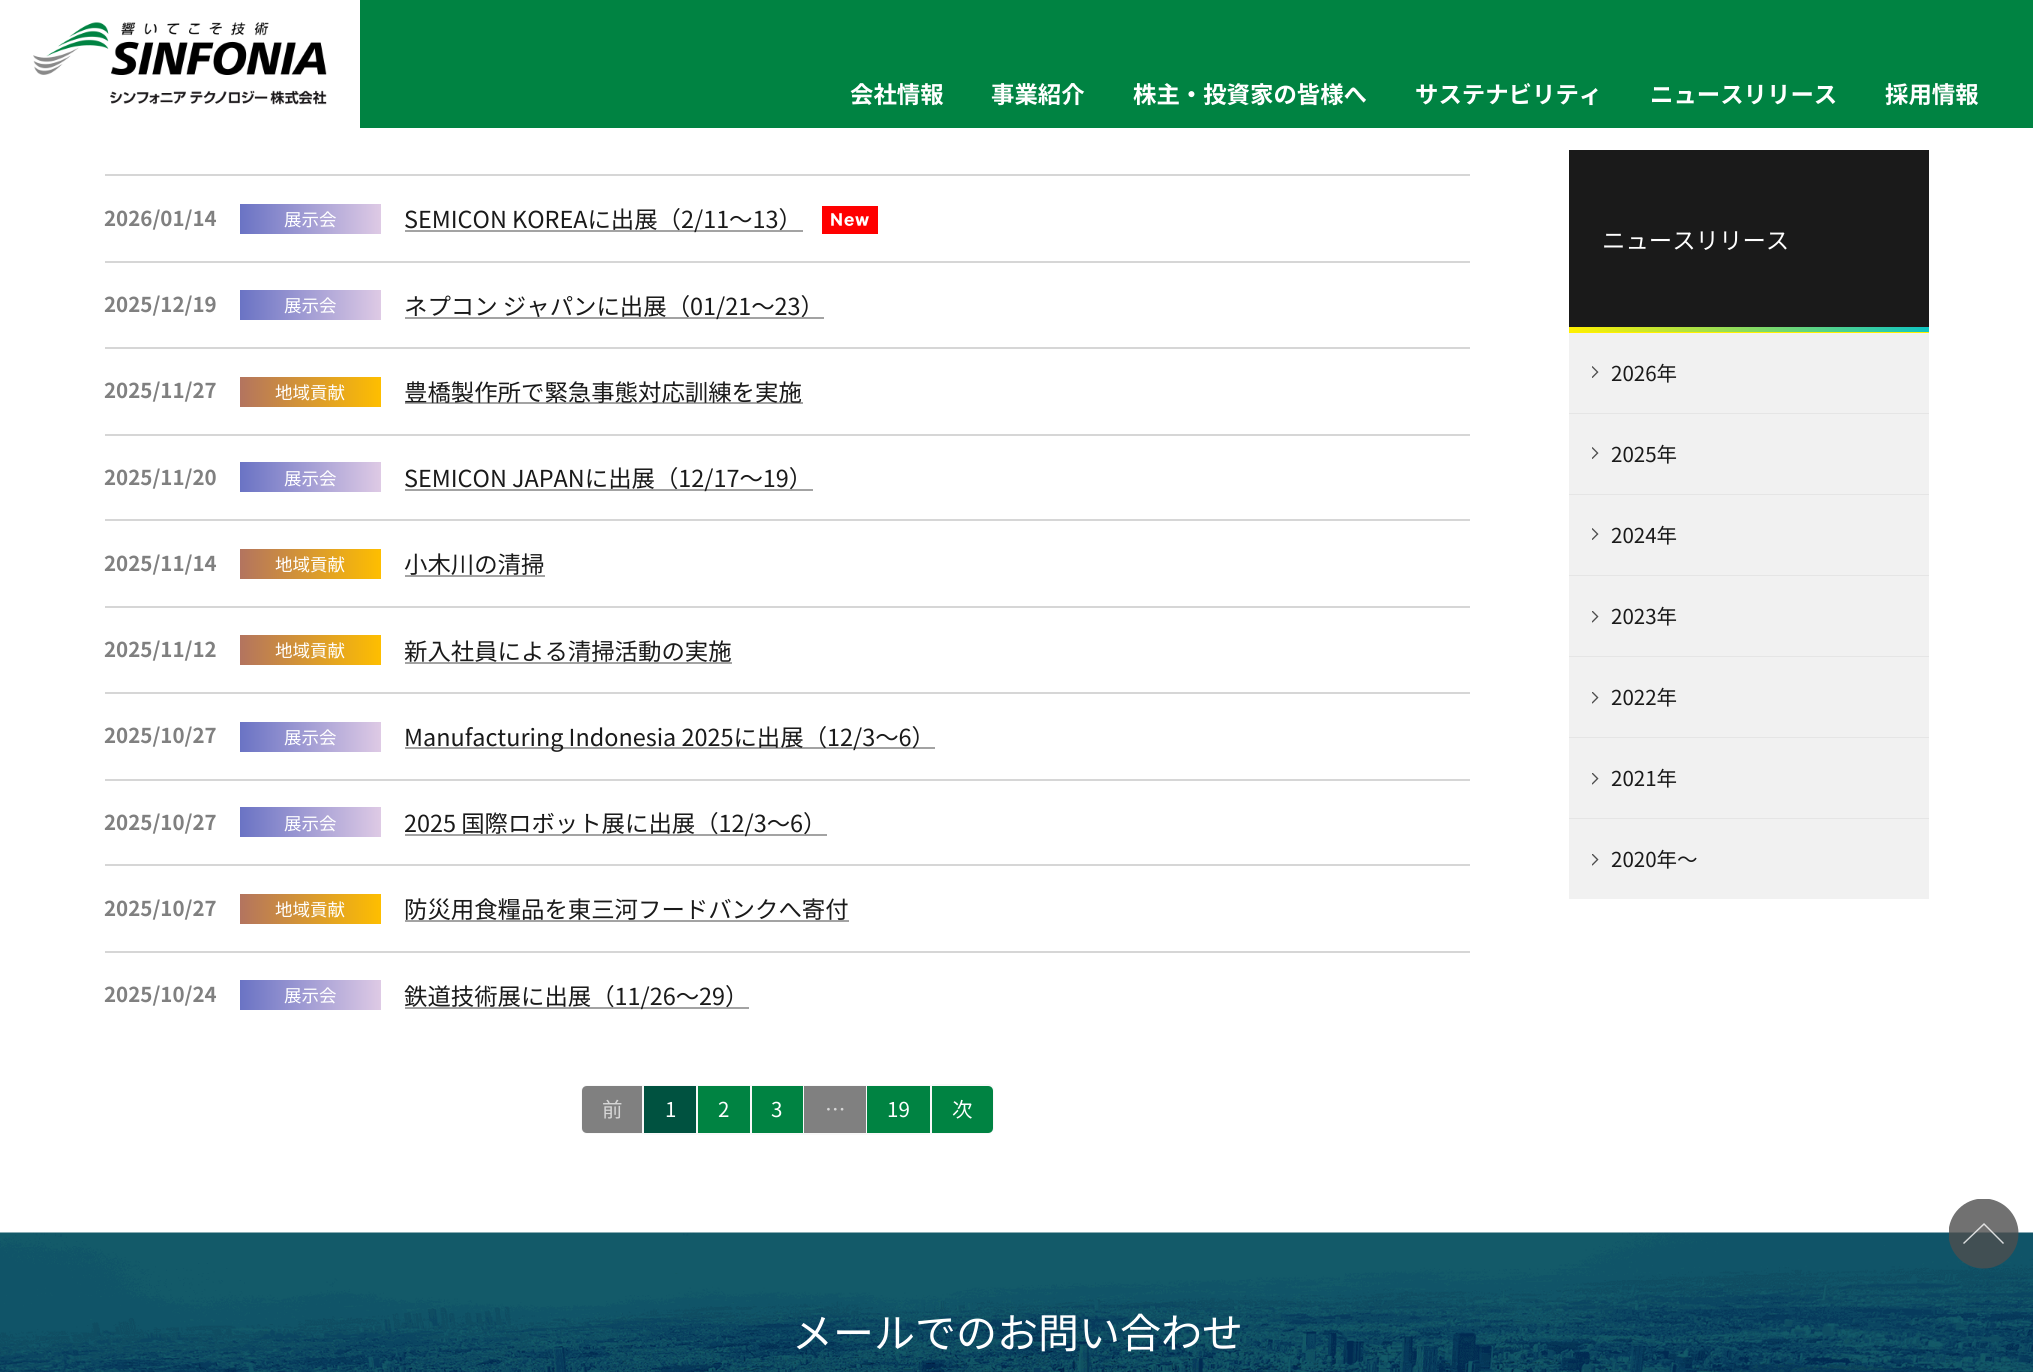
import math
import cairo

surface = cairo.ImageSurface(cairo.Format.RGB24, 2033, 1372)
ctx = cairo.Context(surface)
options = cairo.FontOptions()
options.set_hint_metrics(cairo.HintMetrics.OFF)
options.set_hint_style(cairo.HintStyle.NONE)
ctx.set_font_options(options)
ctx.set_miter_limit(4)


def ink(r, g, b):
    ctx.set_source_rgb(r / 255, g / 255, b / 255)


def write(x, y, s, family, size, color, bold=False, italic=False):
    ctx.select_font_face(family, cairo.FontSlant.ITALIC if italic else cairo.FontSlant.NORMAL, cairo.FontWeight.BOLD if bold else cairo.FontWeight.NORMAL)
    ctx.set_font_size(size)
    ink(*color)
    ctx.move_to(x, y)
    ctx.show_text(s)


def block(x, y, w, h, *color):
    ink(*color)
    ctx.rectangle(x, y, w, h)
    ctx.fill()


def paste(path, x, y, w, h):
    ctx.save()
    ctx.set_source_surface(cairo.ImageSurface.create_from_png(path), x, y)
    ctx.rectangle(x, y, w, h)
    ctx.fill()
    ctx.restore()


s1 = dict(family="Noto Sans JP", size=23.4, color=(255, 255, 255), bold=True)
s2 = dict(family="Noto Sans JP", size=20.5, color=(128, 128, 128), bold=True)
s3 = dict(family="Noto Sans JP", size=17.5, color=(255, 255, 255))
s4 = dict(family="Noto Sans JP", size=23.4, color=(26, 26, 26))
s5 = dict(family="Noto Sans JP", size=20.5, color=(214, 214, 214))
s6 = dict(family="Noto Sans JP", size=20.5, color=(255, 255, 255))
s7 = dict(family="Noto Sans JP", size=23.4, color=(255, 255, 255))
s8 = dict(family="Noto Sans JP", size=20.5, color=(26, 26, 26))
s9 = dict(family="Noto Sans JP", size=41, color=(255, 255, 255))

ink(255, 255, 255)
ctx.paint()
block(360, 0, 1673, 128, 0, 131, 66)
paste("pic1.png", 33, 22, 294, 83)
write(850, 103, "会社情報", **s1)
write(991, 103, "事業紹介", **s1)
write(1133, 103, "株主・投資家の皆様へ", **s1)
write(1415, 103, "サステナビリティ", **s1)
write(1650, 103, "ニュースリリース", **s1)
write(1885, 103, "採用情報", **s1)
block(105, 174, 1365, 2, 214, 214, 214)
write(104, 226, "2026/01/14", **s2)
gradient = cairo.LinearGradient(240, 219, 381, 219)
gradient.add_color_stop_rgba(0, 0.416, 0.451, 0.769, 1)
gradient.add_color_stop_rgba(1, 0.871, 0.792, 0.898, 1)
ctx.set_source(gradient)
ctx.rectangle(240, 204, 141, 30)
ctx.fill()
write(284, 226, "展示会", **s3)
block(405, 230, 398, 2, 163, 163, 163)
write(404, 228, "SEMICON KOREAに出展（2/11～13）", **s4)
paste("pic2.png", 822, 206, 56, 28)
block(105, 261, 1365, 2, 214, 214, 214)
write(104, 312, "2025/12/19", **s2)
gradient = cairo.LinearGradient(240, 305, 381, 305)
gradient.add_color_stop_rgba(0, 0.416, 0.451, 0.769, 1)
gradient.add_color_stop_rgba(1, 0.871, 0.792, 0.898, 1)
ctx.set_source(gradient)
ctx.rectangle(240, 290, 141, 30)
ctx.fill()
write(284, 312, "展示会", **s3)
block(405, 317, 419, 2, 163, 163, 163)
write(404, 315, "ネプコン ジャパンに出展（01/21～23）", **s4)
block(105, 347, 1365, 2, 214, 214, 214)
write(104, 398, "2025/11/27", **s2)
gradient = cairo.LinearGradient(240, 392, 381, 392)
gradient.add_color_stop_rgba(0, 0.702, 0.455, 0.373, 1)
gradient.add_color_stop_rgba(1, 0.996, 0.745, 0, 1)
ctx.set_source(gradient)
ctx.rectangle(240, 377, 141, 30)
ctx.fill()
write(275, 399, "地域貢献", **s3)
block(405, 402, 398, 2, 163, 163, 163)
write(404, 401, "豊橋製作所で緊急事態対応訓練を実施", **s4)
block(105, 434, 1365, 2, 214, 214, 214)
write(104, 485, "2025/11/20", **s2)
gradient = cairo.LinearGradient(240, 477, 381, 477)
gradient.add_color_stop_rgba(0, 0.416, 0.451, 0.769, 1)
gradient.add_color_stop_rgba(1, 0.871, 0.792, 0.898, 1)
ctx.set_source(gradient)
ctx.rectangle(240, 462, 141, 30)
ctx.fill()
write(284, 485, "展示会", **s3)
block(405, 489, 408, 2, 163, 163, 163)
write(404, 487, "SEMICON JAPANに出展（12/17～19）", **s4)
block(105, 519, 1365, 2, 214, 214, 214)
write(104, 571, "2025/11/14", **s2)
gradient = cairo.LinearGradient(240, 564, 381, 564)
gradient.add_color_stop_rgba(0, 0.702, 0.455, 0.373, 1)
gradient.add_color_stop_rgba(1, 0.996, 0.745, 0, 1)
ctx.set_source(gradient)
ctx.rectangle(240, 549, 141, 30)
ctx.fill()
write(275, 571, "地域貢献", **s3)
block(405, 575, 140, 2, 163, 163, 163)
write(404, 573, "小木川の清掃", **s4)
block(105, 606, 1365, 2, 214, 214, 214)
write(104, 657, "2025/11/12", **s2)
gradient = cairo.LinearGradient(240, 650, 381, 650)
gradient.add_color_stop_rgba(0, 0.702, 0.455, 0.373, 1)
gradient.add_color_stop_rgba(1, 0.996, 0.745, 0, 1)
ctx.set_source(gradient)
ctx.rectangle(240, 635, 141, 30)
ctx.fill()
write(275, 657, "地域貢献", **s3)
write(404, 660, "新入社員による清掃活動の実施", **s4)
block(405, 662, 327, 2, 163, 163, 163)
block(105, 692, 1365, 2, 214, 214, 214)
write(104, 743, "2025/10/27", **s2)
gradient = cairo.LinearGradient(240, 737, 381, 737)
gradient.add_color_stop_rgba(0, 0.416, 0.451, 0.769, 1)
gradient.add_color_stop_rgba(1, 0.871, 0.792, 0.898, 1)
ctx.set_source(gradient)
ctx.rectangle(240, 722, 141, 30)
ctx.fill()
write(284, 744, "展示会", **s3)
block(405, 747, 530, 2, 163, 163, 163)
write(404, 746, "Manufacturing Indonesia 2025に出展（12/3～6）", **s4)
block(105, 779, 1365, 2, 214, 214, 214)
write(104, 830, "2025/10/27", **s2)
gradient = cairo.LinearGradient(240, 822, 381, 822)
gradient.add_color_stop_rgba(0, 0.416, 0.451, 0.769, 1)
gradient.add_color_stop_rgba(1, 0.871, 0.792, 0.898, 1)
ctx.set_source(gradient)
ctx.rectangle(240, 807, 141, 30)
ctx.fill()
write(284, 830, "展示会", **s3)
block(405, 834, 422, 2, 163, 163, 163)
write(404, 832, "2025 国際ロボット展に出展（12/3～6）", **s4)
block(105, 864, 1365, 2, 214, 214, 214)
write(104, 916, "2025/10/27", **s2)
gradient = cairo.LinearGradient(240, 909, 381, 909)
gradient.add_color_stop_rgba(0, 0.702, 0.455, 0.373, 1)
gradient.add_color_stop_rgba(1, 0.996, 0.745, 0, 1)
ctx.set_source(gradient)
ctx.rectangle(240, 894, 141, 30)
ctx.fill()
write(275, 916, "地域貢献", **s3)
write(404, 918, "防災用食糧品を東三河フードバンクへ寄付", **s4)
block(405, 920, 444, 2, 163, 163, 163)
block(105, 951, 1365, 2, 214, 214, 214)
write(104, 1002, "2025/10/24", **s2)
gradient = cairo.LinearGradient(240, 995, 381, 995)
gradient.add_color_stop_rgba(0, 0.416, 0.451, 0.769, 1)
gradient.add_color_stop_rgba(1, 0.871, 0.792, 0.898, 1)
ctx.set_source(gradient)
ctx.rectangle(240, 980, 141, 30)
ctx.fill()
write(284, 1002, "展示会", **s3)
block(405, 1007, 344, 2, 163, 163, 163)
write(404, 1005, "鉄道技術展に出展（11/26〜29）", **s4)
ctx.new_path()
ctx.move_to(587, 1086)
ctx.line_to(643, 1086)
ctx.line_to(643, 1133)
ctx.line_to(587, 1133)
ctx.curve_to(584, 1133, 582, 1131, 582, 1128)
ctx.line_to(582, 1091)
ctx.curve_to(582, 1088, 584, 1086, 587, 1086)
ctx.close_path()
ink(249, 249, 249)
ctx.stroke()
ink(128, 128, 128)
ctx.new_path()
ctx.move_to(587, 1086)
ctx.line_to(642, 1086)
ctx.line_to(642, 1133)
ctx.line_to(587, 1133)
ctx.curve_to(584, 1133, 582, 1131, 582, 1128)
ctx.line_to(582, 1091)
ctx.curve_to(582, 1088, 584, 1086, 587, 1086)
ctx.close_path()
ctx.fill()
write(602, 1117, "前", **s5)
block(644, 1085, 288, 1, 249, 249, 249)
block(696, 1085, 2, 49, 249, 249, 249)
block(644, 1133, 54, 2, 249, 249, 249)
block(644, 1086, 52, 47, 0, 82, 64)
write(665, 1117, "1", **s6)
block(750, 1085, 2, 49, 249, 249, 249)
block(698, 1133, 54, 2, 249, 249, 249)
block(698, 1086, 52, 47, 0, 131, 66)
write(718, 1117, "2", **s6)
block(803, 1085, 1, 49, 249, 249, 249)
block(752, 1133, 52, 2, 249, 249, 249)
block(752, 1086, 51, 47, 0, 131, 66)
write(771, 1117, "3", **s6)
block(866, 1085, 1, 49, 249, 249, 249)
block(804, 1133, 63, 2, 249, 249, 249)
block(804, 1086, 62, 47, 128, 128, 128)
write(825, 1117, "…", **s5)
block(930, 1085, 2, 49, 249, 249, 249)
block(867, 1133, 65, 2, 249, 249, 249)
block(867, 1086, 63, 47, 0, 131, 66)
write(887, 1117, "19", **s6)
ink(249, 249, 249)
ctx.set_fill_rule(cairo.FillRule.EVEN_ODD)
ctx.new_path()
ctx.move_to(932, 1084)
ctx.line_to(988, 1084)
ctx.curve_to(992, 1084, 994, 1087, 994, 1091)
ctx.line_to(994, 1128)
ctx.curve_to(994, 1131, 992, 1134, 988, 1134)
ctx.line_to(932, 1134)
ctx.close_path()
ctx.move_to(932, 1086)
ctx.line_to(988, 1086)
ctx.curve_to(991, 1086, 993, 1088, 993, 1091)
ctx.line_to(993, 1128)
ctx.curve_to(993, 1130, 991, 1132, 988, 1132)
ctx.line_to(932, 1132)
ctx.close_path()
ctx.fill()
ink(0, 131, 66)
ctx.new_path()
ctx.move_to(932, 1086)
ctx.line_to(988, 1086)
ctx.curve_to(991, 1086, 993, 1088, 993, 1091)
ctx.line_to(993, 1128)
ctx.curve_to(993, 1131, 991, 1133, 988, 1133)
ctx.line_to(932, 1133)
ctx.close_path()
ctx.fill()
write(952, 1117, "次", **s6)
gradient = cairo.LinearGradient(1569, 241, 1929, 241)
gradient.add_color_stop_rgba(0, 1, 0.941, 0, 1)
gradient.add_color_stop_rgba(1, 0.059, 0.773, 0.765, 1)
ctx.set_source(gradient)
ctx.rectangle(1569, 327, 360, 5)
ctx.fill()
block(1569, 150, 360, 177, 26, 26, 26)
write(1602, 249, "ニュースリリース", **s7)
block(1569, 332, 360, 1, 255, 240, 0)
block(1569, 333, 360, 80, 241, 241, 241)
paste("pic3.png", 1592, 366, 7, 12)
write(1611, 381, "2026年", **s8)
block(1569, 413, 360, 1, 229, 229, 229)
block(1569, 414, 360, 80, 241, 241, 241)
paste("pic3.png", 1592, 447, 7, 12)
write(1611, 462, "2025年", **s8)
block(1569, 494, 360, 1, 229, 229, 229)
block(1569, 495, 360, 80, 241, 241, 241)
paste("pic3.png", 1592, 528, 7, 12)
write(1611, 543, "2024年", **s8)
block(1569, 575, 360, 1, 229, 229, 229)
block(1569, 576, 360, 80, 241, 241, 241)
paste("pic4.png", 1592, 611, 7, 12)
write(1611, 624, "2023年", **s8)
block(1569, 656, 360, 1, 229, 229, 229)
block(1569, 657, 360, 80, 241, 241, 241)
paste("pic4.png", 1592, 692, 7, 12)
write(1611, 705, "2022年", **s8)
block(1569, 737, 360, 1, 229, 229, 229)
block(1569, 738, 360, 80, 241, 241, 241)
paste("pic4.png", 1592, 773, 7, 12)
write(1611, 786, "2021年", **s8)
block(1569, 818, 360, 1, 229, 229, 229)
block(1569, 819, 360, 80, 241, 241, 241)
paste("pic4.png", 1592, 854, 7, 12)
write(1611, 867, "2020年～", **s8)
paste("pic5.png", 0, 1232, 2033, 140)
ctx.save()
ctx.set_fill_rule(cairo.FillRule.WINDING)
ctx.rectangle(1949, 1199, 70, 70)
ctx.clip()
ctx.set_source_rgba(0.306, 0.306, 0.306, 0.8)
ctx.arc(1983.5, 1233.5, 35, 0, 2 * math.pi)
ctx.fill()
ctx.restore()
ctx.set_source_rgba(1, 1, 1, 0.8)
ctx.set_fill_rule(cairo.FillRule.WINDING)
ctx.new_path()
ctx.move_to(2003, 1244)
ctx.line_to(1984, 1225)
ctx.line_to(1964, 1244)
ctx.line_to(1963, 1243)
ctx.line_to(1984, 1223)
ctx.line_to(2004, 1243)
ctx.close_path()
ctx.fill()
write(792, 1348, "メールでのお問い合わせ", **s9)
surface.write_to_png("screenshot.png")
